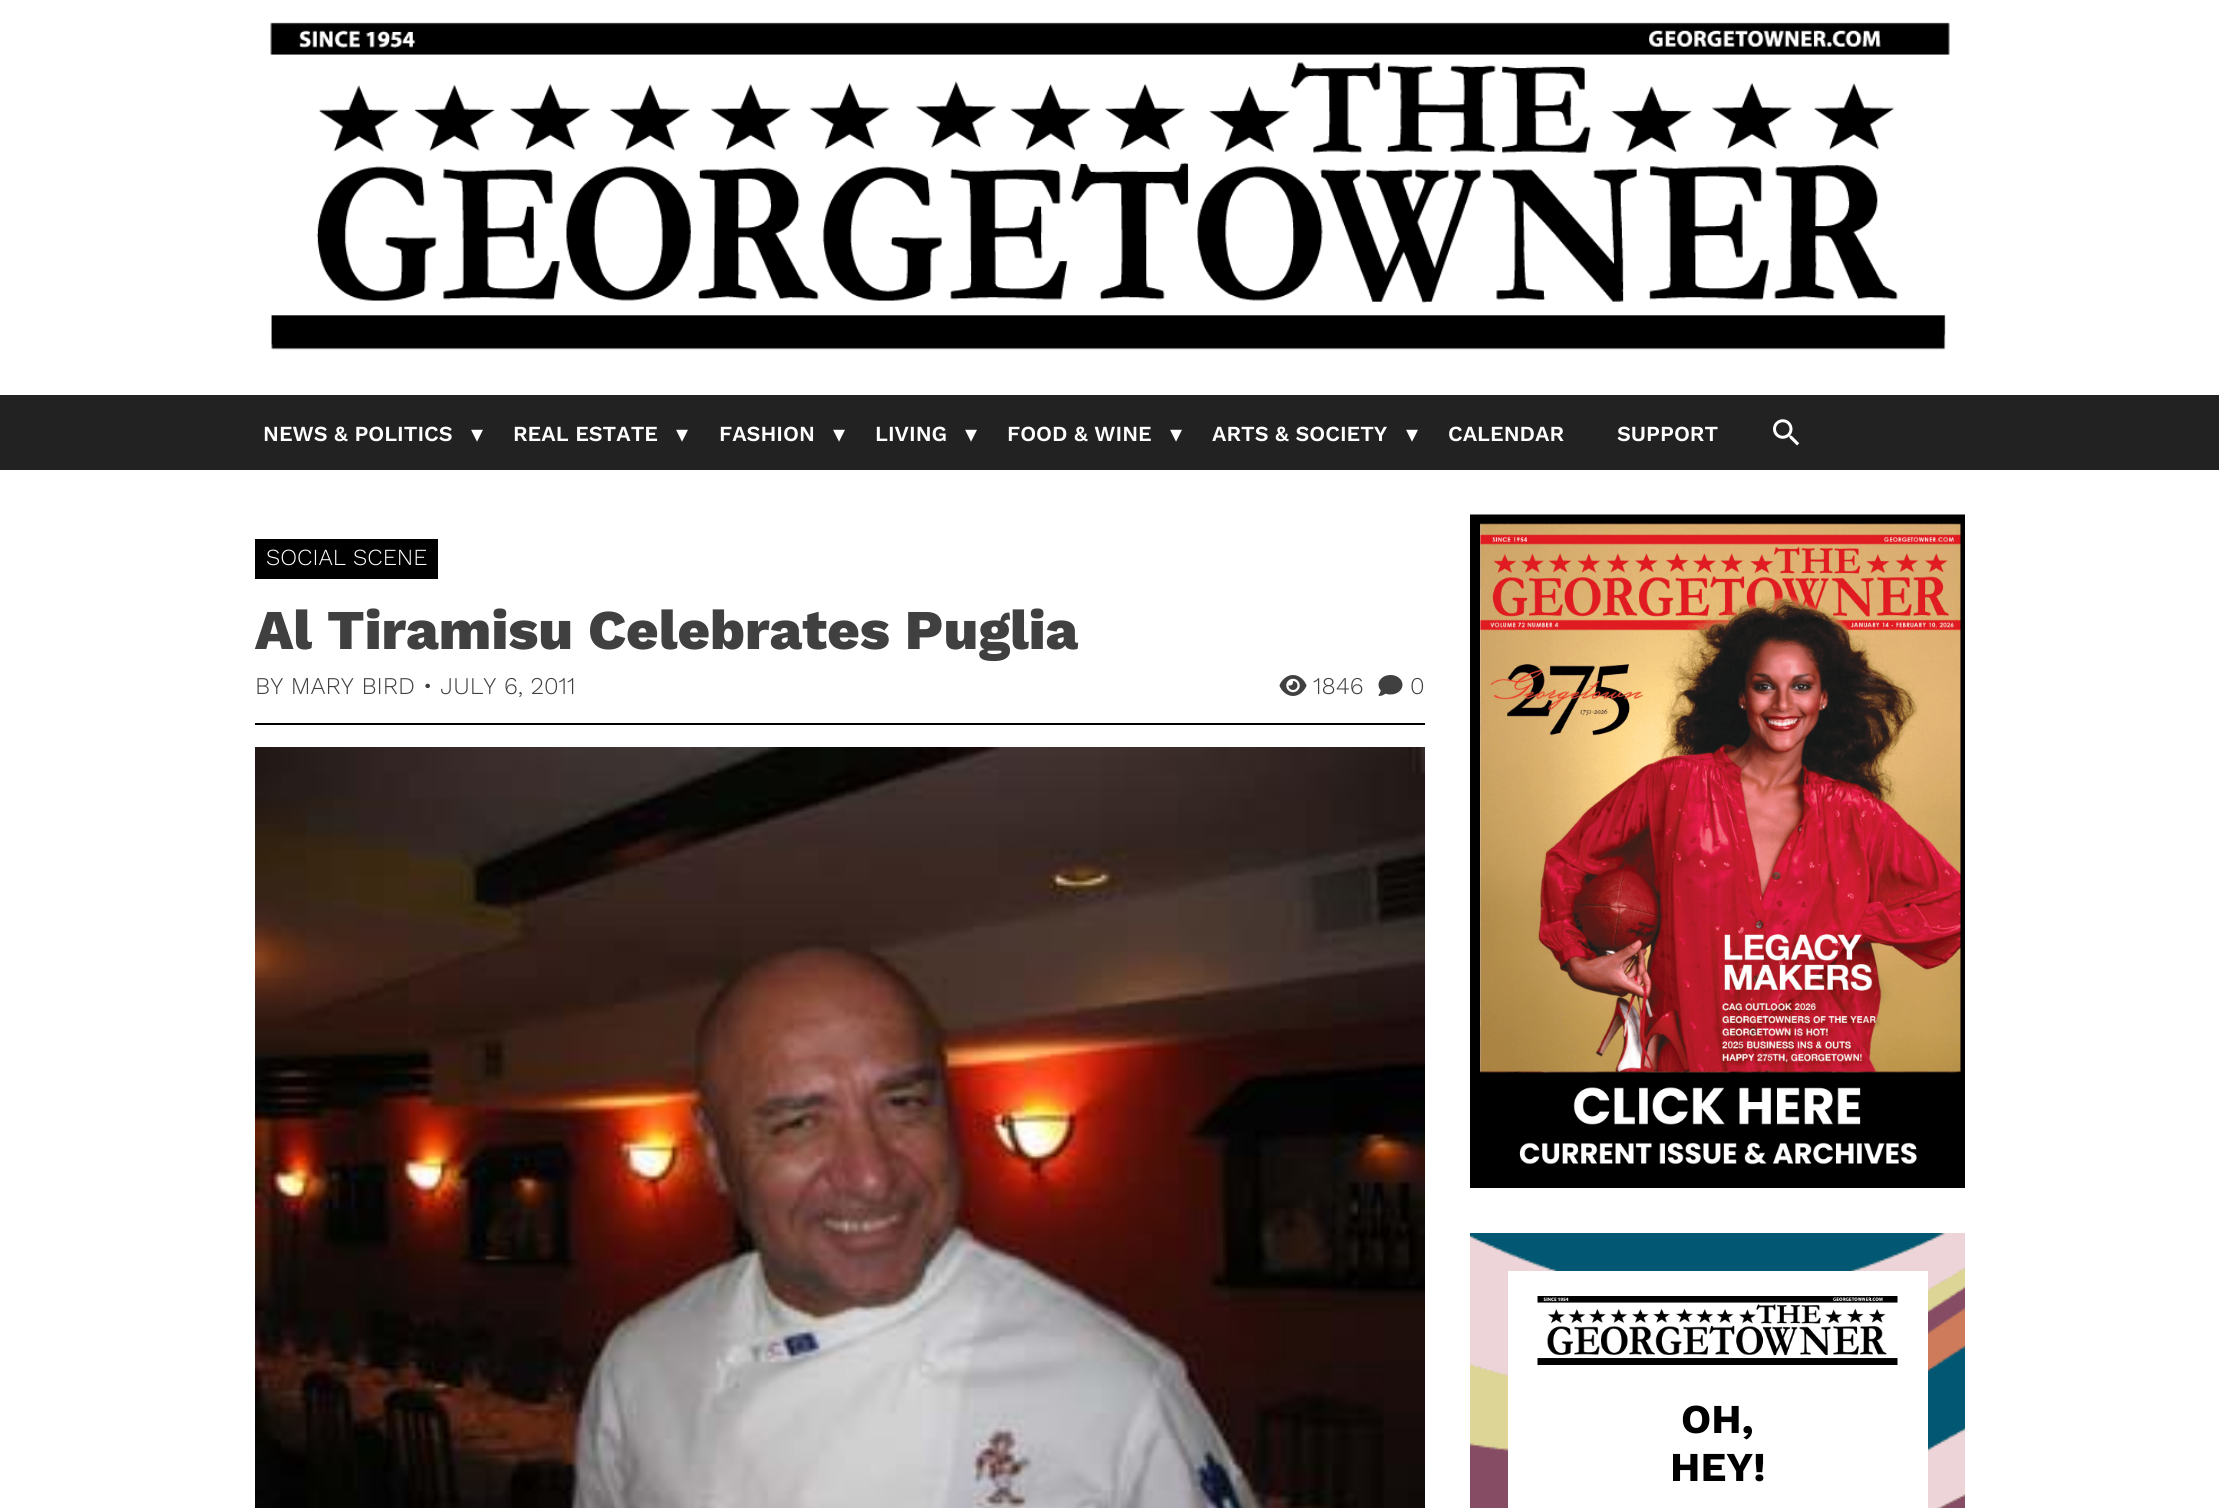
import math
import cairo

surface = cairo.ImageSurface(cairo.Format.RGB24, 2219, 1508)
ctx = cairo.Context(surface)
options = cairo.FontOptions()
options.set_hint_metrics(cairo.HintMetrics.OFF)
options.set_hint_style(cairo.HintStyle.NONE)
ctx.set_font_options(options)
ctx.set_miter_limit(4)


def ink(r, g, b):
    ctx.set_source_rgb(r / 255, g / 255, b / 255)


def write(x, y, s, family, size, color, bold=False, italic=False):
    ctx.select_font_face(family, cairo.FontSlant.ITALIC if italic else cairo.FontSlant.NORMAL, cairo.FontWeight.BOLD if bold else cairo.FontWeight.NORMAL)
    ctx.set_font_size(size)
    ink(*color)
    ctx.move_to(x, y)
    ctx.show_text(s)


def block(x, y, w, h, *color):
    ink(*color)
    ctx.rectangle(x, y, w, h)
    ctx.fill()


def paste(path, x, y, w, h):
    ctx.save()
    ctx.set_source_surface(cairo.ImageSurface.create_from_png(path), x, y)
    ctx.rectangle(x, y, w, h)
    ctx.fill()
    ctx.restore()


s1 = dict(family="Work Sans SemiBold", size=21.5, color=(255, 255, 255))
s2 = dict(family="DejaVu Sans", size=24, color=(255, 255, 255))
s3 = dict(family="Work Sans Light", size=23, color=(255, 255, 255))
s4 = dict(family="Work Sans ExtraBold", size=56.1, color=(64, 64, 64))
s5 = dict(family="Work Sans Light", size=24, color=(64, 64, 64))
s6 = dict(family="Work Sans", size=41, color=(0, 0, 0), bold=True)

ink(255, 255, 255)
ctx.paint()
paste("pic1.png", 270, 22, 1680, 328)
block(0, 395, 2219, 75, 34, 34, 34)
write(263, 441, "NEWS & POLITICS", **s1)
write(471, 442, "▾", **s2)
write(513, 441, "REAL ESTATE", **s1)
write(676, 442, "▾", **s2)
write(719, 441, "FASHION", **s1)
write(833, 442, "▾", **s2)
write(875, 441, "LIVING", **s1)
write(965, 442, "▾", **s2)
write(1007, 441, "FOOD & WINE", **s1)
write(1170, 442, "▾", **s2)
write(1212, 441, "ARTS & SOCIETY", **s1)
write(1406, 442, "▾", **s2)
write(1448, 441, "CALENDAR", **s1)
write(1617, 441, "SUPPORT", **s1)
paste("pic2.png", 1773, 419, 27, 27)
block(255, 539, 183, 40, 0, 0, 0)
write(266, 565, "SOCIAL SCENE", **s3)
write(255, 649, "Al Tiramisu Celebrates Puglia", **s4)
write(255, 694, "BY MARY BIRD • JULY 6, 2011", **s5)
paste("pic3.png", 1279, 675, 28, 21)
write(1313, 694, "1846", **s5)
paste("pic4.png", 1378, 675, 25, 21)
write(1410, 694, "0", **s5)
block(255, 723, 1170, 2, 0, 0, 0)
paste("pic5.png", 255, 747, 1170, 761)
paste("pic6.png", 1470, 514, 495, 674)
paste("pic7.png", 1470, 1233, 495, 275)
block(1508, 1271, 420, 237, 255, 255, 255)
paste("pic8.png", 1537, 1296, 361, 69)
write(1681, 1433, "OH,", **s6)
write(1670, 1481, "HEY!", **s6)
surface.write_to_png("screenshot.png")
